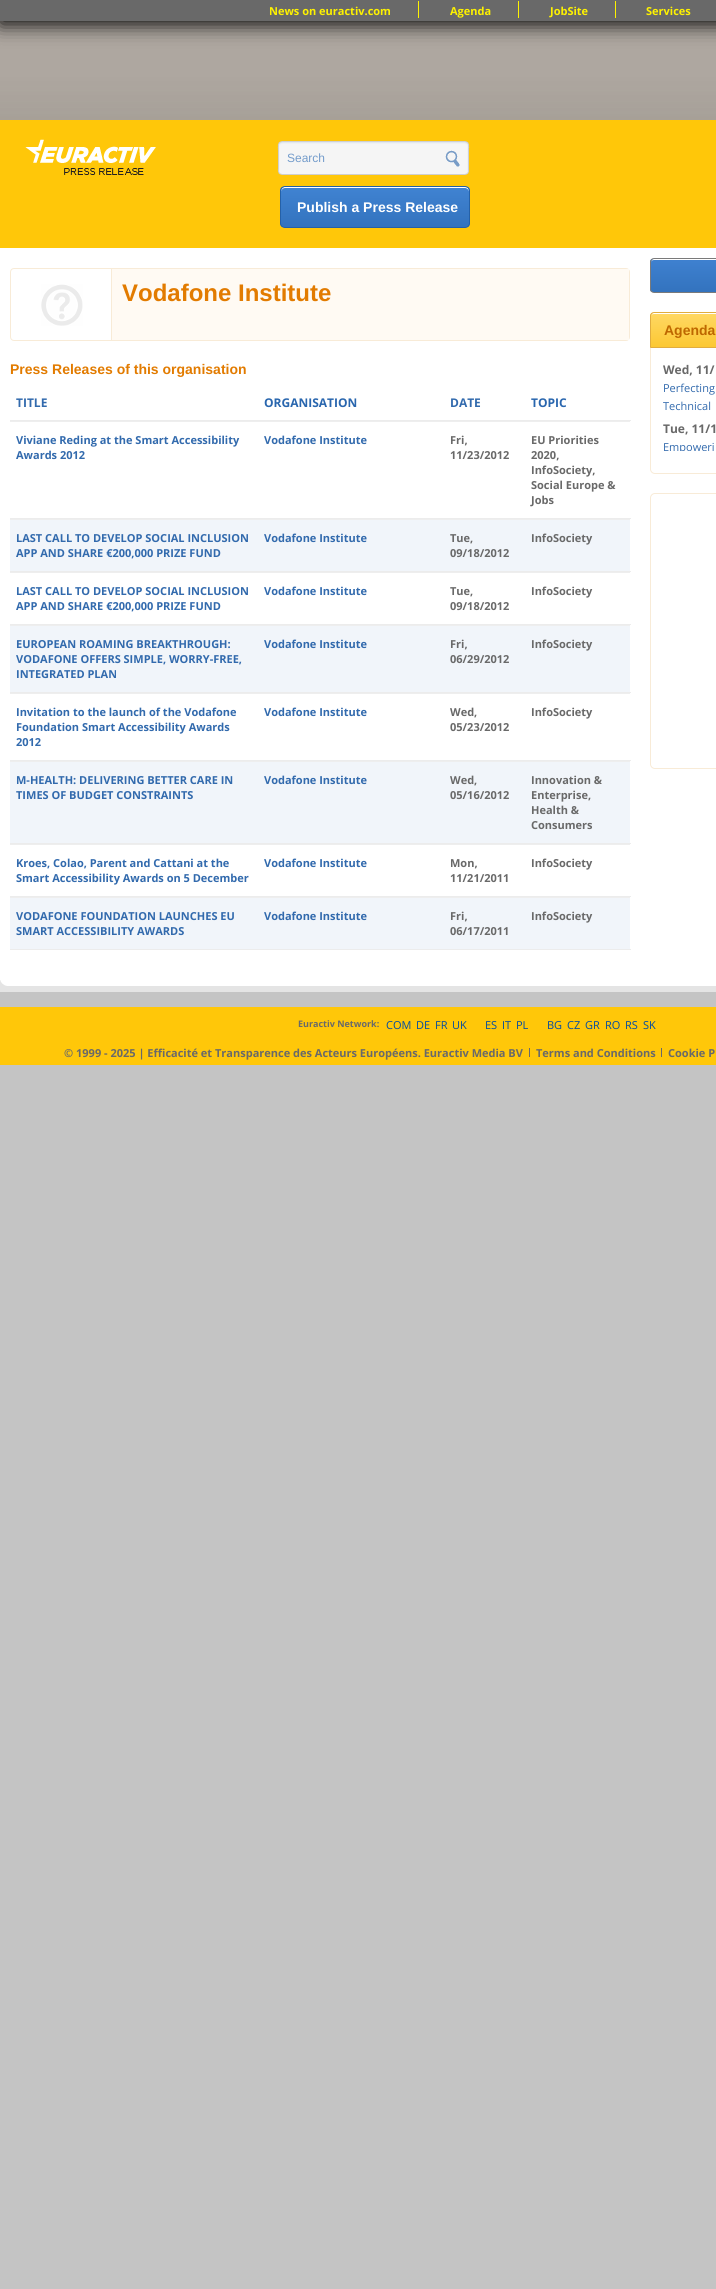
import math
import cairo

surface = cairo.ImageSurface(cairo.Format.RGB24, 716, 2289)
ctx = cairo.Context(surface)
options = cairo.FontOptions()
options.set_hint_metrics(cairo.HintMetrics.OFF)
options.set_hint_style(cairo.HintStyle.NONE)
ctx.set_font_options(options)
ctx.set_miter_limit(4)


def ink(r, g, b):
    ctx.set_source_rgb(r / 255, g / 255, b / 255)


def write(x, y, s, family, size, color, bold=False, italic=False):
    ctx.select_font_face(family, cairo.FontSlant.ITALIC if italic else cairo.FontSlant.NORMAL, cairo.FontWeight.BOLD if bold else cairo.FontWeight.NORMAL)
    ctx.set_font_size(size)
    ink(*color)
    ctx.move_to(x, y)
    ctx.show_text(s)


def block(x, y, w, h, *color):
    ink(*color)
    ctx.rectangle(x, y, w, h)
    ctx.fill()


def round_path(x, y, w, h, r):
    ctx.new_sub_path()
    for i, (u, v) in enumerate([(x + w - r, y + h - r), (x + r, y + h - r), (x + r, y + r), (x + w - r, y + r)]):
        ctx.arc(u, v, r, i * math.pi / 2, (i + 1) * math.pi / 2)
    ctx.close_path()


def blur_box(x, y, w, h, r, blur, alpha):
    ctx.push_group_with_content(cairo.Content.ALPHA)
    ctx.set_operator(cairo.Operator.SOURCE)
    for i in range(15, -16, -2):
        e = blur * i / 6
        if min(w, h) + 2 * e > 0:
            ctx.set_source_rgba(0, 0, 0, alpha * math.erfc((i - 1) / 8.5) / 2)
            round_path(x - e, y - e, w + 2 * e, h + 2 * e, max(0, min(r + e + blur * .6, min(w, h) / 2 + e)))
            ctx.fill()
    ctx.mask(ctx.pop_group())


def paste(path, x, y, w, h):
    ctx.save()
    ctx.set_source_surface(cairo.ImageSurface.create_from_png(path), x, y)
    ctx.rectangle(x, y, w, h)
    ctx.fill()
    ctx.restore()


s1 = dict(family="Open Sans", size=11, color=(254, 242, 0), bold=True)
s2 = dict(family="Liberation Sans", size=12, color=(116, 156, 203))
s3 = dict(family="Liberation Sans", size=14, color=(255, 255, 255), bold=True)
s4 = dict(family="Liberation Sans", size=24, color=(226, 123, 0), bold=True)
s5 = dict(family="Liberation Sans", size=14, color=(226, 123, 0), bold=True)
s6 = dict(family="Open Sans", size=12, color=(50, 106, 173), bold=True)
s7 = dict(family="Open Sans", size=12, color=(41, 102, 174), bold=True)
s8 = dict(family="Open Sans", size=11, color=(50, 106, 173), bold=True)
s9 = dict(family="Open Sans", size=11, color=(105, 105, 105), bold=True)
s10 = dict(family="Liberation Sans", size=14, color=(190, 103, 0), bold=True)
s11 = dict(family="Open Sans", size=12, color=(105, 105, 105), bold=True)
s12 = dict(family="Open Sans", size=11, color=(50, 106, 173))
s13 = dict(family="Open Sans", size=9, color=(105, 105, 105), bold=True)
s14 = dict(family="Open Sans", size=11, color=(1, 75, 163))

ink(196, 196, 196)
ctx.paint()
paste("pic1.png", 0, 21, 716, 99)
ink(0, 0, 0)
blur_box(0, 3, 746, 21, 0, 10, 1)
block(0, 0, 716, 21, 105, 105, 105)
write(269, 15, "News on euractiv.com", **s1)
block(418, 1, 1, 17, 254, 242, 0)
write(450, 15, "Agenda", **s1)
block(518, 1, 1, 17, 254, 242, 0)
write(550, 15, "JobSite", **s1)
block(615, 1, 1, 17, 254, 242, 0)
write(646, 15, "Services", **s1)
block(0, 120, 716, 128, 255, 199, 9)
paste("pic2.png", 25, 139, 131, 36)
paste("pic3.png", 277, 141, 193, 34)
write(287, 162, "Search", **s2)
paste("pic4.png", 445, 150, 15, 17)
ctx.save()
round_path(280, 186, 190, 42, 5)
ctx.clip()
gradient = cairo.LinearGradient(375, 187, 375, 227)
gradient.add_color_stop_rgba(0, 0.251, 0.514, 0.824, 1)
gradient.add_color_stop_rgba(1, 0.2, 0.451, 0.745, 1)
ctx.set_source(gradient)
ctx.rectangle(280, 187, 190, 40)
ctx.fill()
ctx.restore()
ink(255, 255, 255)
ctx.new_path()
ctx.move_to(285, 188)
ctx.line_to(465, 188)
ctx.curve_to(467, 188, 469, 190, 469, 192)
ctx.curve_to(469, 189, 468, 187, 465, 187)
ctx.line_to(284, 187)
ctx.curve_to(282, 188, 281, 190, 281, 192)
ctx.curve_to(281, 190, 283, 188, 285, 188)
ctx.close_path()
ctx.fill()
round_path(280.5, 186.5, 189, 41, 4.5)
ink(37, 97, 168)
ctx.set_line_width(1)
ctx.stroke()
write(297, 212, "Publish a Press Release", **s3)
block(0, 987, 716, 5, 228, 228, 228)
block(0, 248, 716, 732, 255, 255, 255)
paste("pic5.png", 0, 980, 716, 7)
round_path(10.5, 268.5, 619, 72, 3.5)
ink(248, 235, 215)
ctx.stroke()
paste("pic6.png", 41, 284, 42, 42)
block(112, 269, 517, 71, 255, 250, 243)
block(111, 269, 1, 71, 248, 235, 215)
write(122, 301, "Vodafone Institute", **s4)
write(10, 374, "Press Releases of this organisation", **s5)
write(16, 407, "TITLE", **s6)
write(264, 407, "ORGANISATION", **s7)
write(450, 407, "DATE", **s6)
write(531, 407, "TOPIC", **s7)
block(10, 421, 620, 1, 238, 238, 238)
write(16, 444, "Viviane Reding at the Smart Accessibility", **s8)
write(16, 459, "Awards 2012", **s8)
write(264, 444, "Vodafone Institute", **s8)
write(450, 444, "Fri,", **s9)
write(450, 459, "11/23/2012", **s9)
block(10, 420, 621, 1, 236, 236, 236)
write(531, 444, "EU Priorities", **s9)
write(531, 459, "2020,", **s9)
write(531, 474, "InfoSociety,", **s9)
write(531, 489, "Social Europe &", **s9)
write(531, 504, "Jobs", **s9)
block(10, 519, 620, 1, 238, 238, 238)
block(10, 520, 620, 51, 241, 245, 250)
write(16, 542, "LAST CALL TO DEVELOP SOCIAL INCLUSION", **s8)
write(16, 557, "APP AND SHARE €200,000 PRIZE FUND", **s8)
write(264, 542, "Vodafone Institute", **s8)
write(450, 542, "Tue,", **s9)
write(450, 557, "09/18/2012", **s9)
block(10, 518, 621, 1, 236, 236, 236)
write(531, 542, "InfoSociety", **s9)
block(10, 572, 620, 1, 238, 238, 238)
write(16, 595, "LAST CALL TO DEVELOP SOCIAL INCLUSION", **s8)
write(16, 610, "APP AND SHARE €200,000 PRIZE FUND", **s8)
write(264, 595, "Vodafone Institute", **s8)
write(450, 595, "Tue,", **s9)
write(450, 610, "09/18/2012", **s9)
block(10, 571, 621, 1, 236, 236, 236)
write(531, 595, "InfoSociety", **s9)
block(10, 625, 620, 1, 238, 238, 238)
block(10, 626, 620, 66, 241, 245, 250)
write(16, 648, "EUROPEAN ROAMING BREAKTHROUGH:", **s8)
write(16, 663, "VODAFONE OFFERS SIMPLE, WORRY-FREE,", **s8)
write(16, 678, "INTEGRATED PLAN", **s8)
write(264, 648, "Vodafone Institute", **s8)
write(450, 648, "Fri,", **s9)
write(450, 663, "06/29/2012", **s9)
block(10, 624, 621, 1, 236, 236, 236)
write(531, 648, "InfoSociety", **s9)
block(10, 693, 620, 1, 238, 238, 238)
write(16, 716, "Invitation to the launch of the Vodafone", **s8)
write(16, 731, "Foundation Smart Accessibility Awards", **s8)
write(16, 746, "2012", **s8)
write(264, 716, "Vodafone Institute", **s8)
write(450, 716, "Wed,", **s9)
write(450, 731, "05/23/2012", **s9)
block(10, 692, 621, 1, 236, 236, 236)
write(531, 716, "InfoSociety", **s9)
block(10, 761, 620, 1, 238, 238, 238)
block(10, 762, 620, 81, 241, 245, 250)
write(16, 784, "M-HEALTH: DELIVERING BETTER CARE IN", **s8)
write(16, 799, "TIMES OF BUDGET CONSTRAINTS", **s8)
write(264, 784, "Vodafone Institute", **s8)
write(450, 784, "Wed,", **s9)
write(450, 799, "05/16/2012", **s9)
block(10, 760, 621, 1, 236, 236, 236)
write(531, 784, "Innovation &", **s9)
write(531, 799, "Enterprise,", **s9)
write(531, 814, "Health &", **s9)
write(531, 829, "Consumers", **s9)
block(10, 844, 620, 1, 238, 238, 238)
write(16, 867, "Kroes, Colao, Parent and Cattani at the", **s8)
write(16, 882, "Smart Accessibility Awards on 5 December", **s8)
write(264, 867, "Vodafone Institute", **s8)
write(450, 867, "Mon,", **s9)
write(450, 882, "11/21/2011", **s9)
block(10, 843, 621, 1, 236, 236, 236)
write(531, 867, "InfoSociety", **s9)
block(10, 897, 620, 1, 238, 238, 238)
block(10, 898, 620, 51, 241, 245, 250)
write(16, 920, "VODAFONE FOUNDATION LAUNCHES EU", **s8)
write(16, 935, "SMART ACCESSIBILITY AWARDS", **s8)
write(264, 920, "Vodafone Institute", **s8)
write(450, 920, "Fri,", **s9)
write(450, 935, "06/17/2011", **s9)
block(10, 896, 621, 1, 236, 236, 236)
block(10, 949, 621, 1, 236, 236, 236)
write(531, 920, "InfoSociety", **s9)
ctx.save()
round_path(650, 258, 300, 35, 4)
ctx.clip()
gradient = cairo.LinearGradient(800, 259, 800, 292)
gradient.add_color_stop_rgba(0, 0.247, 0.506, 0.816, 1)
gradient.add_color_stop_rgba(1, 0.2, 0.451, 0.745, 1)
ctx.set_source(gradient)
ctx.rectangle(650, 259, 66, 33)
ctx.fill()
ctx.restore()
ink(255, 255, 255)
ctx.new_path()
ctx.move_to(654, 260)
ctx.line_to(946, 260)
ctx.curve_to(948, 260, 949, 261, 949, 263)
ctx.line_to(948, 260)
ctx.line_to(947, 259)
ctx.line_to(654, 259)
ctx.curve_to(652, 259, 651, 261, 651, 263)
ctx.curve_to(651, 261, 652, 260, 654, 260)
ctx.close_path()
ctx.fill()
round_path(650.5, 258.5, 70, 34, 3.5)
ink(122, 122, 122)
ctx.stroke()
round_path(650.5, 312.5, 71, 161, 4.5)
ink(248, 235, 215)
ctx.stroke()
ctx.save()
ctx.new_path()
ctx.move_to(654, 312)
ctx.line_to(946, 312)
ctx.curve_to(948, 312, 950, 314, 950, 316)
ctx.line_to(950, 347)
ctx.curve_to(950, 347.5, 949.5, 348, 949, 348)
ctx.line_to(651, 348)
ctx.curve_to(650.5, 348, 650, 347.5, 650, 347)
ctx.line_to(650, 316)
ctx.curve_to(650, 314, 652, 312, 654, 312)
ctx.close_path()
ctx.clip()
gradient = cairo.LinearGradient(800, 313, 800, 347)
gradient.add_color_stop_rgba(0, 1, 0.847, 0.392, 1)
gradient.add_color_stop_rgba(1, 0.988, 0.784, 0.2, 1)
ctx.set_source(gradient)
ctx.rectangle(650, 313, 66, 34)
ctx.fill()
ctx.restore()
ink(255, 255, 255)
ctx.new_path()
ctx.move_to(654, 314)
ctx.line_to(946, 314)
ctx.curve_to(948, 314, 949, 315, 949, 317)
ctx.line_to(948, 314)
ctx.line_to(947, 313)
ctx.line_to(654, 313)
ctx.curve_to(652, 313, 651, 315, 651, 317)
ctx.curve_to(651, 315, 652, 314, 654, 314)
ctx.close_path()
ctx.fill()
ctx.new_path()
ctx.move_to(654, 312.5)
ctx.line_to(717, 312.5)
ctx.curve_to(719, 312.5, 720.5, 314, 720.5, 316)
ctx.line_to(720.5, 347)
ctx.curve_to(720.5, 347.5, 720.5, 347.5, 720, 347.5)
ctx.line_to(651, 347.5)
ctx.curve_to(650.5, 347.5, 650.5, 347.5, 650.5, 347)
ctx.line_to(650.5, 316)
ctx.curve_to(650.5, 314, 652, 312.5, 654, 312.5)
ctx.close_path()
ink(225, 173, 63)
ctx.stroke()
write(664, 335, "Agenda", **s10)
write(663, 374, "Wed, 11/", **s11)
write(663, 392, "Perfecting", **s12)
write(663, 410, "Technical", **s12)
write(663, 433, "Tue, 11/1", **s11)
ctx.save()
ctx.rectangle(663, 361, 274, 90)
ctx.clip()
write(663, 451, "Empoweri", **s12)
ctx.restore()
round_path(650.5, 493.5, 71, 275, 4.5)
ink(248, 235, 215)
ctx.stroke()
block(0, 1007, 716, 58, 255, 199, 9)
write(298, 1027, "Euractiv Network:", **s13)
write(386, 1029, "COM", **s14)
write(416, 1029, "DE", **s14)
write(435, 1029, "FR", **s14)
write(452, 1029, "UK", **s14)
write(485, 1029, "ES", **s14)
write(502, 1029, "IT", **s14)
write(516, 1029, "PL", **s14)
write(547, 1029, "BG", **s14)
write(567, 1029, "CZ", **s14)
write(585, 1029, "GR", **s14)
write(605, 1029, "RO", **s14)
write(625, 1029, "RS", **s14)
write(643, 1029, "SK", **s14)
write(64, 1057, "© 1999 - 2025 | Efficacité et Transparence des Acteurs Européens. Euractiv Media BV", **s9)
write(536, 1057, "Terms and Conditions", **s9)
block(529, 1048, 1, 9, 105, 105, 105)
write(668, 1057, "Cookie P", **s9)
block(661, 1048, 1, 9, 105, 105, 105)
surface.write_to_png("screenshot.png")
